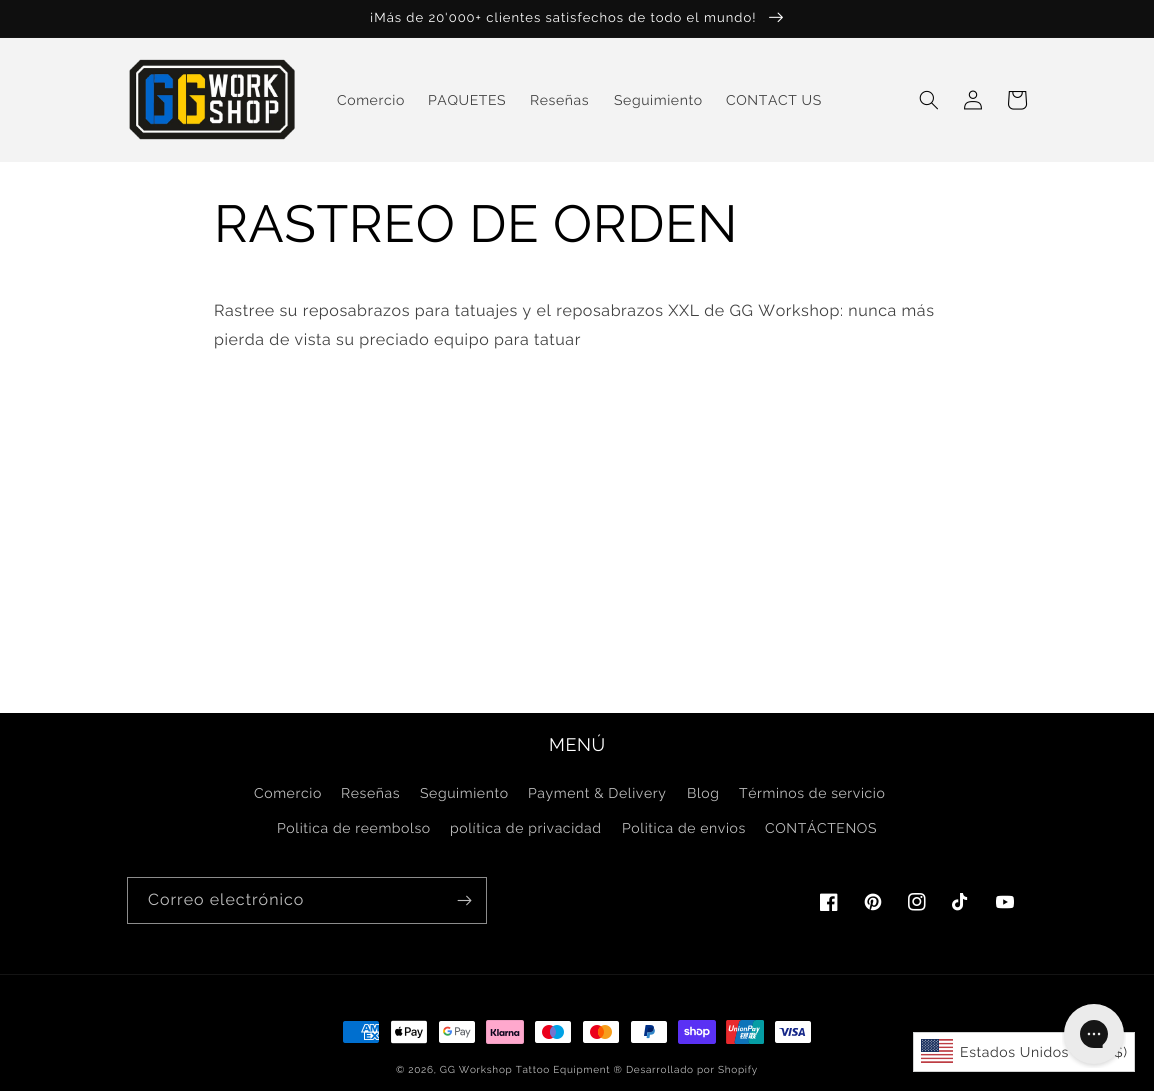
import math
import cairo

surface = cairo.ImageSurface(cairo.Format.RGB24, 1154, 1091)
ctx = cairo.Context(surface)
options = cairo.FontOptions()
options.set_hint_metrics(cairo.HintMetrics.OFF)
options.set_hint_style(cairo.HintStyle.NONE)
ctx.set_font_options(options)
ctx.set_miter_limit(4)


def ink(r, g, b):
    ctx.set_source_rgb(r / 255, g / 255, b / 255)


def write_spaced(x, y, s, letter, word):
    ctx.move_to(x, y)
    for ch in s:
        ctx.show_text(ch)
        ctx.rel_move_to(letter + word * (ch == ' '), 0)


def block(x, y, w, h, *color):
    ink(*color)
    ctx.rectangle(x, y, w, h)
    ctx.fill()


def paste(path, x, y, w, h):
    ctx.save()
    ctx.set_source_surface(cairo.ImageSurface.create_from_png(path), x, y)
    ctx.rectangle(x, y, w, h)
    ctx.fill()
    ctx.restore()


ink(255, 255, 255)
ctx.paint()
block(0, 37, 1154, 1, 20, 20, 20)
block(0, 0, 1154, 37, 15, 15, 15)
ctx.select_font_face("Raleway")
ctx.set_font_size(13)
ink(255, 255, 255)
write_spaced(370, 22, "¡Más de 20'000+ clientes satisfechos de todo el mundo!", 1, 0)
paste("pic1.png", 769, 12, 14, 11)
block(0, 38, 1154, 124, 243, 243, 243)
paste("pic2.png", 129, 59, 166, 81)
ctx.set_font_size(14)
ink(64, 64, 64)
write_spaced(337, 105, "Comercio", 0.6, 0)
write_spaced(428, 105, "PAQUETES", 0.6, 0)
write_spaced(530, 105, "Reseñas", 0.6, 0)
write_spaced(614, 105, "Seguimiento", 0.6, 0)
write_spaced(726, 105, "CONTACT US", 0.6, 0)
paste("pic3.png", 919, 90, 19, 20)
paste("pic4.png", 964, 90, 18, 20)
paste("pic5.png", 1008, 91, 20, 19)
ctx.set_font_size(52)
ink(0, 0, 0)
write_spaced(214, 242, "RASTREO DE ORDEN", 0.6, 0)
ctx.set_font_size(16)
ink(64, 64, 64)
write_spaced(214, 316, "Rastree su reposabrazos para tatuajes y el reposabrazos XXL de GG Workshop: nunca más", 0.6, 0)
write_spaced(214, 345, "pierda de vista su preciado equipo para tatuar", 0.6, 0)
block(0, 713, 1154, 378, 0, 0, 0)
ctx.set_font_size(18)
ink(255, 255, 255)
write_spaced(549, 751, "MENÚ", 0.6, 0)
ctx.set_font_size(14)
ink(191, 191, 191)
write_spaced(254, 798, "Comercio", 0.6, 0)
write_spaced(341, 798, "Reseñas", 0.6, 0)
write_spaced(420, 798, "Seguimiento", 0.6, 0)
write_spaced(528, 798, "Payment & Delivery", 0.6, 0)
write_spaced(687, 798, "Blog", 0.6, 0)
write_spaced(739, 798, "Términos de servicio", 0.6, 0)
write_spaced(277, 833, "Politica de reembolso", 0.6, 0)
write_spaced(450, 833, "política de privacidad", 0.6, 0)
write_spaced(622, 833, "Politica de envios", 0.6, 0)
write_spaced(765, 833, "CONTÁCTENOS", 0.6, 0)
ctx.rectangle(127.5, 877.5, 359, 46)
ink(140, 140, 140)
ctx.set_line_width(1)
ctx.stroke()
ctx.set_font_size(16)
ink(191, 191, 191)
write_spaced(148, 905, "Correo electrónico", 1, 0)
paste("pic6.png", 457, 895, 15, 11)
paste("pic7.png", 820, 893, 18, 18)
paste("pic8.png", 864, 893, 18, 18)
paste("pic9.png", 908, 893, 18, 18)
paste("pic10.png", 952, 893, 16, 18)
paste("pic11.png", 996, 895, 18, 14)
block(0, 974, 1154, 1, 20, 20, 20)
paste("pic12.png", 343, 1021, 36, 22)
paste("pic13.png", 391, 1020, 36, 24)
paste("pic14.png", 439, 1021, 36, 22)
paste("pic15.png", 486, 1020, 38, 24)
paste("pic16.png", 535, 1021, 36, 22)
paste("pic17.png", 583, 1021, 36, 22)
paste("pic18.png", 631, 1021, 36, 22)
paste("pic19.png", 678, 1020, 38, 24)
paste("pic20.png", 726, 1020, 38, 24)
paste("pic21.png", 775, 1021, 36, 22)
ctx.set_font_size(10)
ink(191, 191, 191)
write_spaced(396, 1073, "© 2026, GG Workshop Tattoo Equipment ®", 0.7, 0)
write_spaced(626, 1073, "Desarrollado por Shopify", 0.7, 0)
ink(255, 255, 255)
ctx.rectangle(913.5, 1032.5, 221, 39)
ctx.fill_preserve()
ink(210, 211, 211)
ctx.stroke()
ctx.set_font_size(14)
ink(51, 51, 51)
write_spaced(960, 1057, "Estados Unidos", 0.6, 0)
write_spaced(1114, 1057, "$)", 0.6, 0)
paste("pic22.png", 1062, 1004, 64, 64)
paste("pic23.png", 921, 1039, 32, 24)
surface.write_to_png("screenshot.png")
